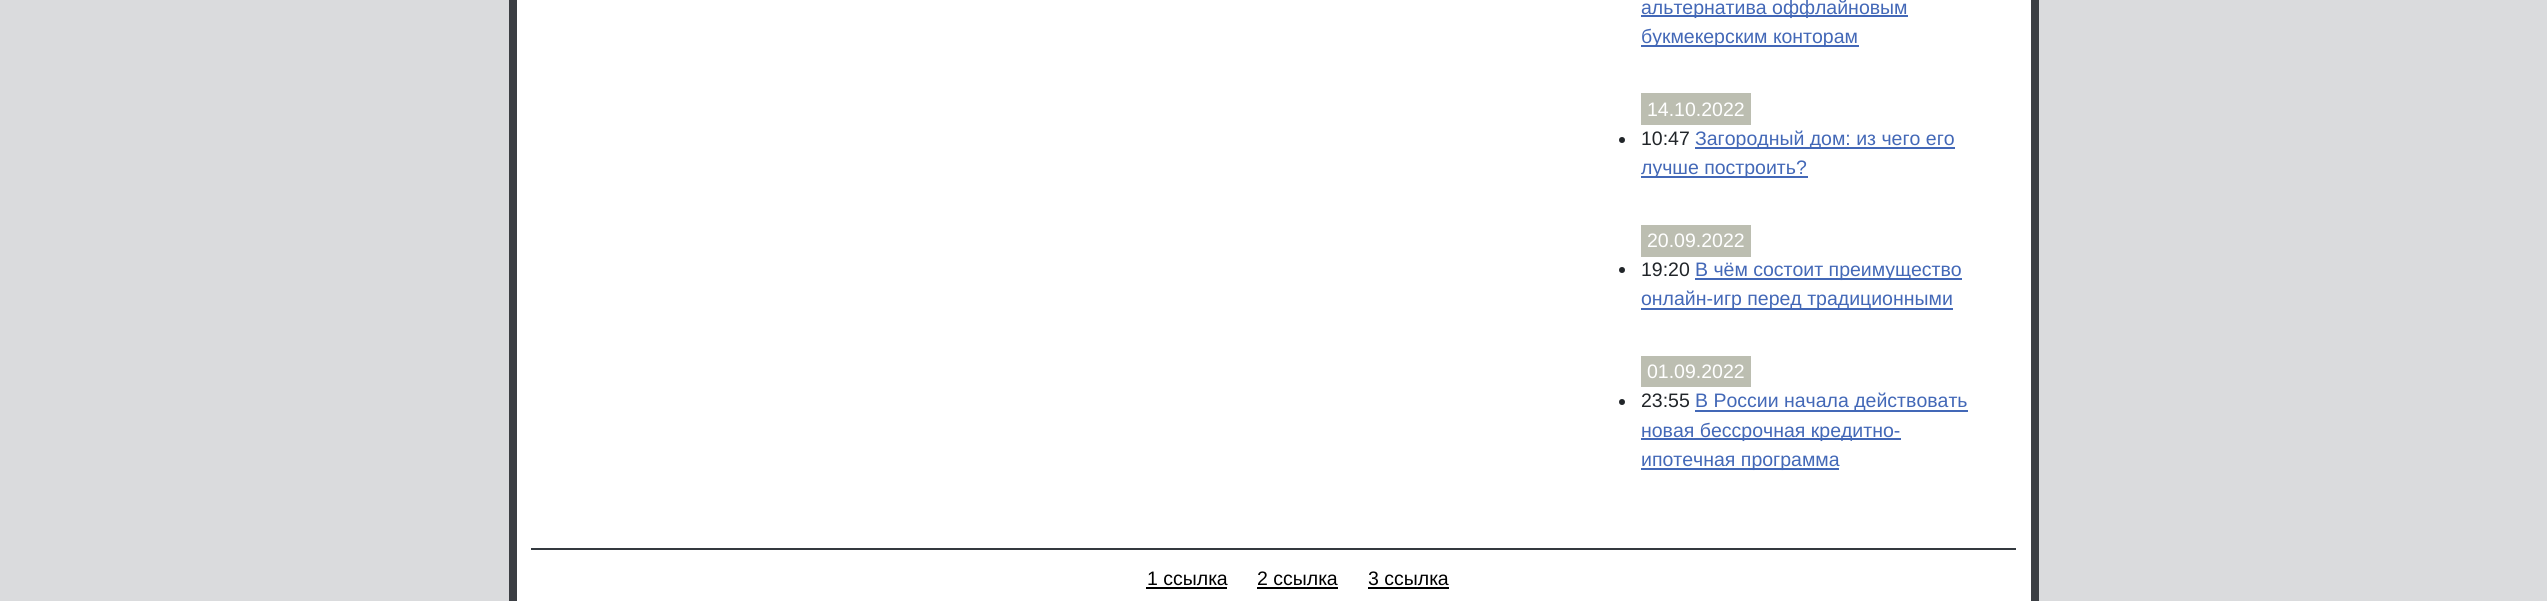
import math
import cairo

surface = cairo.ImageSurface(cairo.Format.RGB24, 2547, 601)
ctx = cairo.Context(surface)
options = cairo.FontOptions()
options.set_hint_metrics(cairo.HintMetrics.OFF)
options.set_hint_style(cairo.HintStyle.NONE)
ctx.set_font_options(options)
ctx.set_miter_limit(4)


def ink(r, g, b):
    ctx.set_source_rgb(r / 255, g / 255, b / 255)


def write(x, y, s, family, size, color, bold=False, italic=False):
    ctx.select_font_face(family, cairo.FontSlant.ITALIC if italic else cairo.FontSlant.NORMAL, cairo.FontWeight.BOLD if bold else cairo.FontWeight.NORMAL)
    ctx.set_font_size(size)
    ink(*color)
    ctx.move_to(x, y)
    ctx.show_text(s)


def block(x, y, w, h, *color):
    ink(*color)
    ctx.rectangle(x, y, w, h)
    ctx.fill()


s1 = dict(family="Liberation Sans", size=19.5, color=(67, 104, 183))
s2 = dict(family="Liberation Sans", size=19.5, color=(255, 255, 255))
s3 = dict(family="Liberation Sans", size=19.5, color=(33, 37, 41))
s4 = dict(family="Liberation Sans", size=19.5, color=(0, 0, 0))

ink(218, 219, 221)
ctx.paint()
ink(255, 255, 255)
ctx.rectangle(513, -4, 1522, 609)
ctx.fill_preserve()
ink(59, 62, 67)
ctx.set_line_width(8)
ctx.stroke()
block(1641, 15, 267, 2, 67, 104, 183)
write(1641, 14, "альтернатива оффлайновым", **s1)
block(1641, 45, 218, 2, 67, 104, 183)
write(1641, 43, "букмекерским конторам", **s1)
block(1641, 93, 110, 32, 188, 190, 177)
write(1647, 116, "14.10.2022", **s2)
ink(33, 37, 41)
ctx.new_path()
ctx.arc(1622, 140, 3, 0, 2 * math.pi)
ctx.fill()
write(1641, 145, "10:47", **s3)
block(1695, 147, 260, 2, 67, 104, 183)
write(1695, 145, "Загородный дом: из чего его", **s1)
block(1641, 176, 167, 2, 67, 104, 183)
write(1641, 174, "лучше построить?", **s1)
block(1641, 225, 110, 32, 188, 190, 177)
write(1647, 247, "20.09.2022", **s2)
ink(33, 37, 41)
ctx.new_path()
ctx.arc(1622, 270, 3, 0, 2 * math.pi)
ctx.fill()
write(1641, 276, "19:20", **s3)
block(1695, 278, 267, 2, 67, 104, 183)
write(1695, 276, "В чём состоит преимущество", **s1)
block(1641, 308, 312, 2, 67, 104, 183)
write(1641, 305, "онлайн-игр перед традиционными", **s1)
block(1641, 356, 110, 31, 188, 190, 177)
write(1647, 378, "01.09.2022", **s2)
ink(33, 37, 41)
ctx.new_path()
ctx.arc(1622, 402, 3, 0, 2 * math.pi)
ctx.fill()
write(1641, 407, "23:55", **s3)
block(1695, 410, 273, 2, 67, 104, 183)
write(1695, 407, "В России начала действовать", **s1)
block(1641, 438, 260, 2, 67, 104, 183)
write(1641, 437, "новая бессрочная кредитно-", **s1)
block(1641, 468, 198, 2, 67, 104, 183)
write(1641, 466, "ипотечная программа", **s1)
block(531, 548, 1485, 2, 52, 57, 63)
write(1147, 585, "1 ссылка", **s4)
block(1146, 587, 81, 2, 0, 0, 0)
write(1257, 585, "2 ссылка", **s4)
block(1257, 587, 81, 2, 0, 0, 0)
write(1368, 585, "3 ссылка", **s4)
block(1368, 587, 81, 2, 0, 0, 0)
surface.write_to_png("screenshot.png")
